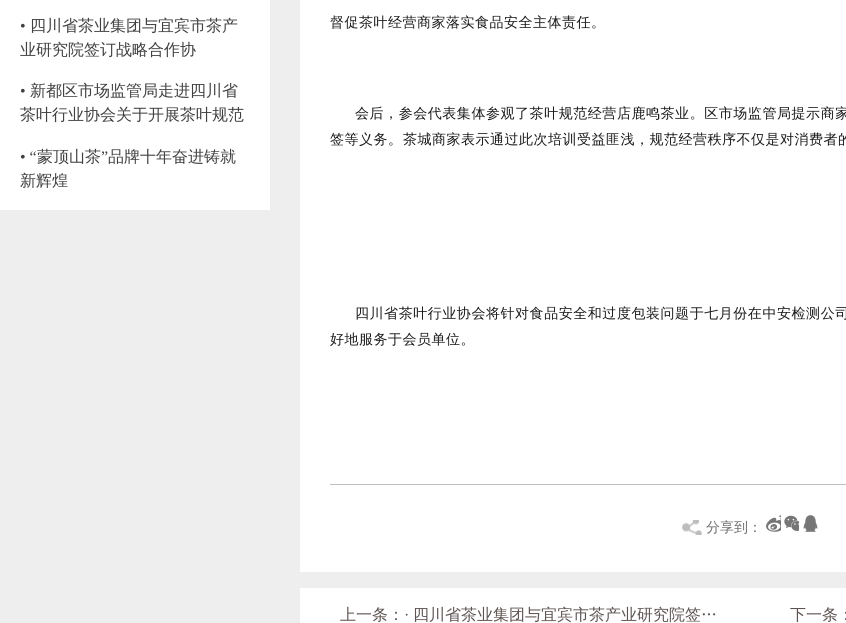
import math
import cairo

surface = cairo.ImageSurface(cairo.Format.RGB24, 846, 623)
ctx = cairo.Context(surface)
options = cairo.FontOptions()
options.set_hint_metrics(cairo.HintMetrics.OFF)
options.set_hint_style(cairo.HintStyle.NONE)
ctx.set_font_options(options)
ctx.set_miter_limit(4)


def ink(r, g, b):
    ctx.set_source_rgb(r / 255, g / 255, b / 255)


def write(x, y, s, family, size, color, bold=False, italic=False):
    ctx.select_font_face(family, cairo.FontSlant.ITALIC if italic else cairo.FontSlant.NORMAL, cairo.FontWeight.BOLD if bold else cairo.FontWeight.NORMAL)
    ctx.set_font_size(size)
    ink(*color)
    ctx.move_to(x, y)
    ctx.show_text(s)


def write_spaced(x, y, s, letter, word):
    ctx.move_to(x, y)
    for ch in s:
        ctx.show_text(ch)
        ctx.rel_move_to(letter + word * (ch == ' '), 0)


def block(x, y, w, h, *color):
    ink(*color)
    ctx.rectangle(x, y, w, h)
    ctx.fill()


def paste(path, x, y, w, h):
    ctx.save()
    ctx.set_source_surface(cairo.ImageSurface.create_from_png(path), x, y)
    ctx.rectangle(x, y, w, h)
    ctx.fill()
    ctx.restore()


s1 = dict(family="Liberation Serif", size=16, color=(64, 64, 64))
s2 = dict(family="WenQuanYi Zen Hei Medium", size=16, color=(64, 64, 64))
s3 = dict(family="WenQuanYi Zen Hei Medium", size=14, color=(110, 110, 110))
s4 = dict(family="WenQuanYi Zen Hei Medium", size=16, color=(93, 84, 82))
s5 = dict(family="Liberation Serif", size=16, color=(93, 84, 82))

ink(238, 238, 238)
ctx.paint()
block(0, 0, 270, 210, 255, 255, 255)
write(20, 31, "•", **s1)
write(30, 31, "四川省茶业集团与宜宾市茶产", **s2)
write(20, 55, "业研究院签订战略合作协", **s2)
write(20, 96, "•", **s1)
write(30, 96, "新都区市场监管局走进四川省", **s2)
write(20, 120, "茶叶行业协会关于开展茶叶规范", **s2)
write(20, 162, "• “", **s1)
write(37, 162, "蒙顶山茶", **s2)
write(101, 162, "”", **s1)
write(108, 162, "品牌十年奋进铸就", **s2)
write(20, 186, "新辉煌", **s2)
block(300, 0, 546, 572, 255, 255, 255)
ctx.set_font_size(14)
ink(26, 26, 26)
write_spaced(330, 27, "督促茶叶经营商家落实食品安全主体责任。", 0.5, 0)
write_spaced(355, 118, "会后，参会代表集体参观了茶叶规范经营店鹿鸣茶业。区市场监管局提示商家", 0.55, 0)
write_spaced(330, 144, "签等义务。", 0.5, 0)
write_spaced(403, 144, "茶城商家表示通过此次培训受益匪浅，规范经营秩序不仅是对消费者的", 0.5, 0)
write_spaced(355, 318, "四川省茶叶行业协会将针对食品安全和过度包装问题于七月份在中安检测公司", 0.55, 0)
write_spaced(330, 344, "好地服务于会员单位。", 0.5, 0)
block(330, 484, 516, 1, 191, 191, 191)
paste("pic1.png", 682, 520, 20, 15)
write(706, 532, "分享到：", **s3)
paste("pic2.png", 766, 515, 15, 17)
paste("pic3.png", 784, 515, 15, 16)
paste("pic4.png", 803, 515, 15, 17)
block(300, 588, 546, 35, 255, 255, 255)
write(340, 620, "上一条：", **s4)
write(404, 620, "·", **s5)
write(413, 620, "四川省茶业集团与宜宾市茶产业研究院签…", **s4)
write(790, 620, "下一条：", **s4)
surface.write_to_png("screenshot.png")
